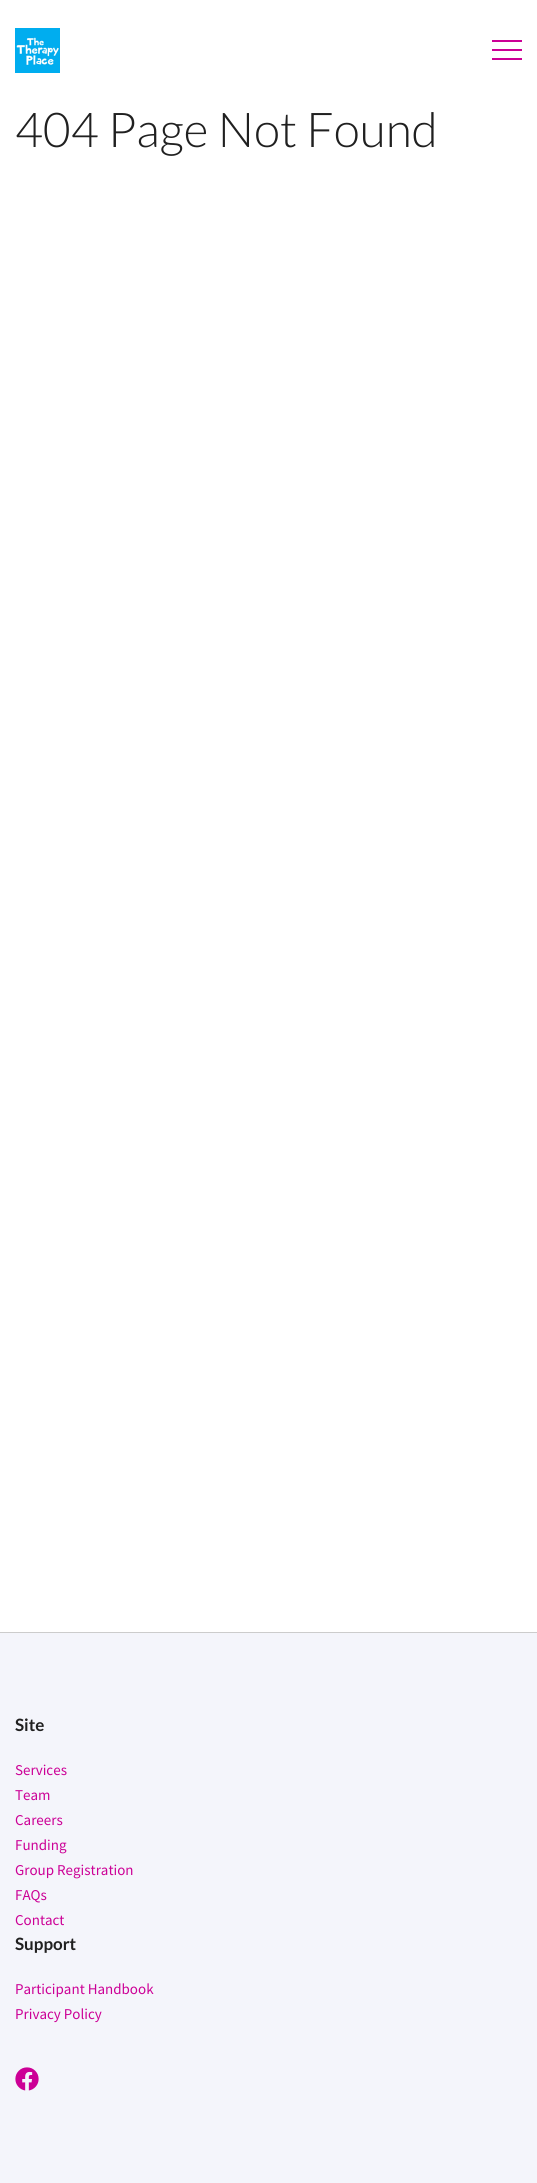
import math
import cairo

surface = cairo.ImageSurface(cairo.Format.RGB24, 537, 2183)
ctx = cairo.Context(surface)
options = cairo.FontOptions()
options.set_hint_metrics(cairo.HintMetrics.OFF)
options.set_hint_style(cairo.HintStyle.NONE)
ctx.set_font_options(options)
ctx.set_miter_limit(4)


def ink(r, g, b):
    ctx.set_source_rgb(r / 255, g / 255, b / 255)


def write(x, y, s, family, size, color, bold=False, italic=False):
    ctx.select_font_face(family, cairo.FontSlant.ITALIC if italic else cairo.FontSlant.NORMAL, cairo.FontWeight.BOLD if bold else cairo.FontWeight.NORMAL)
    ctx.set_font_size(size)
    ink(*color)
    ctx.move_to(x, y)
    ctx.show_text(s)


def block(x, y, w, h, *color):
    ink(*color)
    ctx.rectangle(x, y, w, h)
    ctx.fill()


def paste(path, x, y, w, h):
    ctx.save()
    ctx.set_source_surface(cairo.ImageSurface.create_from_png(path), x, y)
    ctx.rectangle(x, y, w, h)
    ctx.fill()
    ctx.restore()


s1 = dict(family="Lato Light", size=48, color=(32, 32, 32))
s2 = dict(family="Lato", size=17, color=(32, 32, 32), bold=True)
s3 = dict(family="Source Sans Pro", size=15, color=(204, 0, 150))

ink(255, 255, 255)
ctx.paint()
paste("pic1.png", 15, 28, 45, 45)
block(492, 40, 30, 2, 204, 0, 150)
block(492, 58, 30, 2, 204, 0, 150)
block(492, 49, 30, 2, 204, 0, 150)
write(15, 147, "404 Page Not Found", **s1)
block(0, 1633, 537, 550, 244, 245, 251)
block(0, 1632, 537, 1, 204, 204, 204)
write(15, 1731, "Site", **s2)
write(15, 1775, "Services", **s3)
write(15, 1800, "Team", **s3)
write(15, 1825, "Careers", **s3)
write(15, 1850, "Funding", **s3)
write(15, 1875, "Group Registration", **s3)
write(15, 1900, "FAQs", **s3)
write(15, 1925, "Contact", **s3)
write(15, 1950, "Support", **s2)
write(15, 1994, "Participant Handbook", **s3)
write(15, 2019, "Privacy Policy", **s3)
paste("pic2.png", 15, 2067, 24, 24)
surface.write_to_png("screenshot.png")
